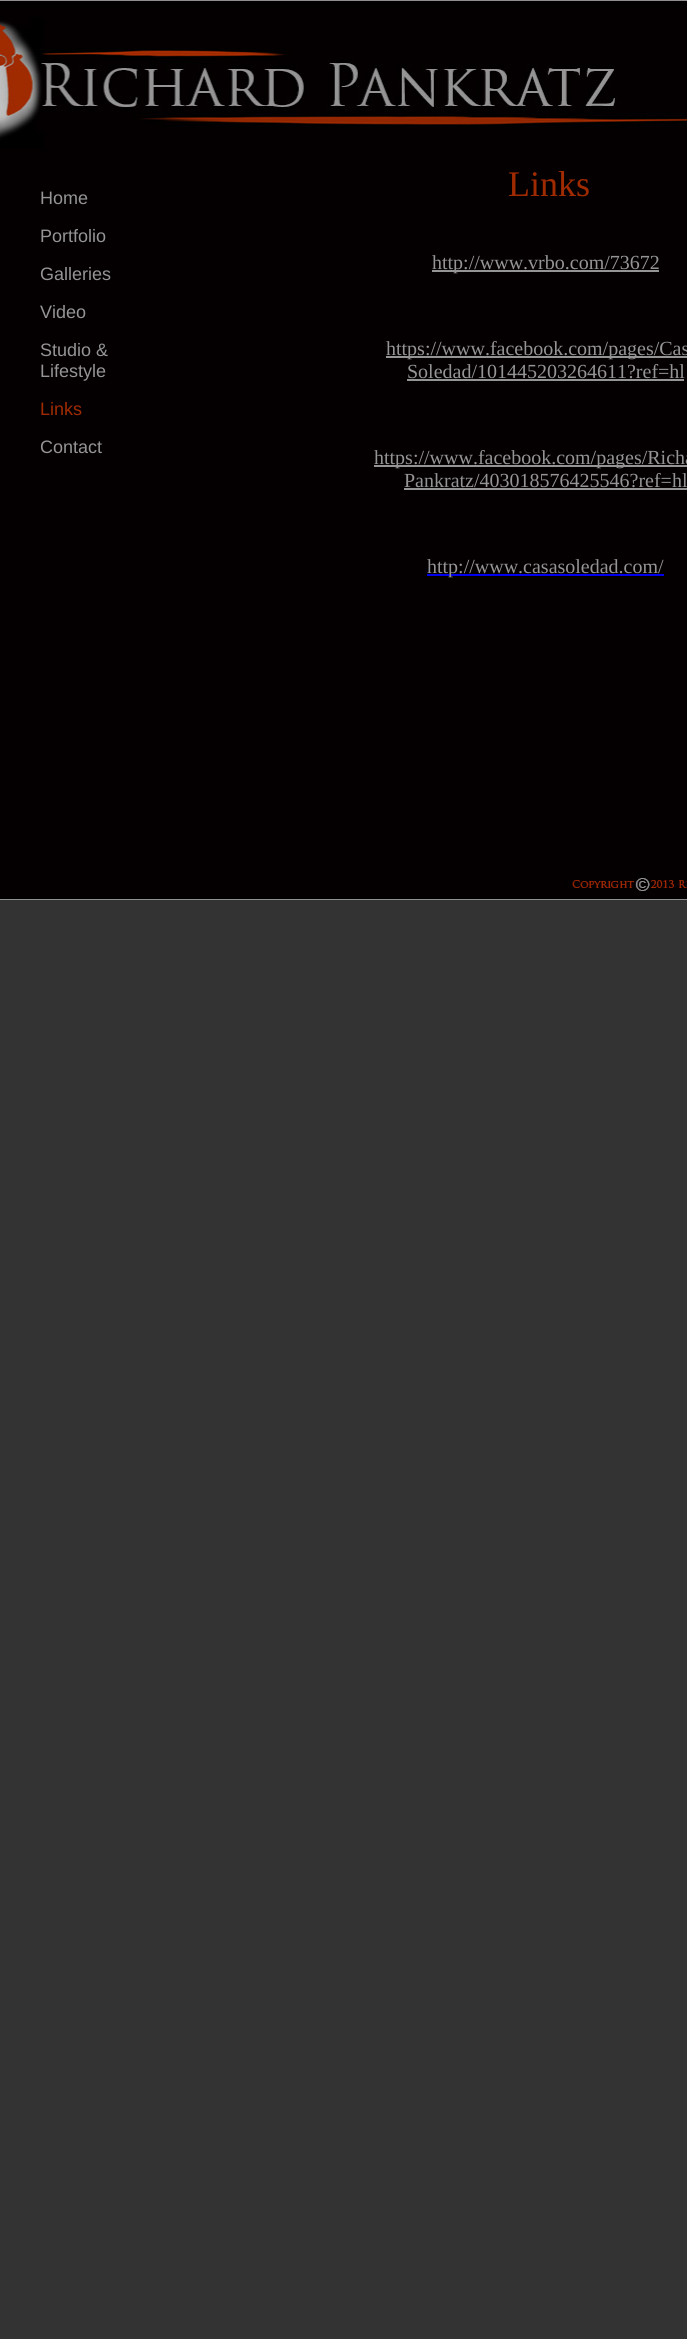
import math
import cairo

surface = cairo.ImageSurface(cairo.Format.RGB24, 687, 2339)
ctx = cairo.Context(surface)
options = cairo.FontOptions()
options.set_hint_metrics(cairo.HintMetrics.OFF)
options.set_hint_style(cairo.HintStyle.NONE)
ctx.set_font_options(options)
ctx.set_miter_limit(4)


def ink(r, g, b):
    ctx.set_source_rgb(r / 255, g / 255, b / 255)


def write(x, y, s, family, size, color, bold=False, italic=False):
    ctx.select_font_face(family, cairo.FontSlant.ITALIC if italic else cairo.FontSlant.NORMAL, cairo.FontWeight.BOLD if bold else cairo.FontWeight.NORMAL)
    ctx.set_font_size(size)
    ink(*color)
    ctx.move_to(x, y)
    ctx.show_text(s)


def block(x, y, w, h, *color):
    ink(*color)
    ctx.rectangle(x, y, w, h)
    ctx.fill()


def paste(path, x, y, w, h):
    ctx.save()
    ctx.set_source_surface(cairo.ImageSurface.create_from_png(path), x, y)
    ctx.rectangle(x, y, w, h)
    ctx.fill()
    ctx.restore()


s1 = dict(family="Liberation Serif", size=36, color=(160, 43, 0))
s2 = dict(family="Liberation Sans", size=18, color=(149, 149, 149))
s3 = dict(family="Liberation Sans", size=18, color=(160, 43, 0))
s4 = dict(family="Liberation Serif", size=20, color=(149, 149, 149))

ink(51, 51, 51)
ctx.paint()
paste("pic1.png", 0, 0, 687, 900)
write(508, 196, "Links", **s1)
write(40, 204, "Home", **s2)
write(40, 242, "Portfolio", **s2)
write(40, 280, "Galleries", **s2)
write(40, 318, "Video", **s2)
write(40, 356, "Studio &", **s2)
write(40, 377, "Lifestyle", **s2)
write(40, 415, "Links", **s3)
write(40, 453, "Contact", **s2)
block(432, 270, 227, 2, 149, 149, 149)
write(432, 269, "http://www.vrbo.com/73672", **s4)
block(386, 356, 301, 2, 149, 149, 149)
write(386, 355, "https://www.facebook.com/pages/Cas", **s4)
write(407, 378, "Soledad/101445203264611?ref=hl", **s4)
block(407, 379, 277, 2, 149, 149, 149)
block(374, 465, 313, 2, 149, 149, 149)
write(374, 464, "https://www.facebook.com/pages/Richa", **s4)
write(404, 487, "Pankratz/403018576425546?ref=hl", **s4)
block(404, 488, 283, 2, 149, 149, 149)
block(427, 574, 237, 2, 0, 0, 238)
write(427, 573, "http://www.casasoledad.com/", **s4)
surface.write_to_png("screenshot.png")
